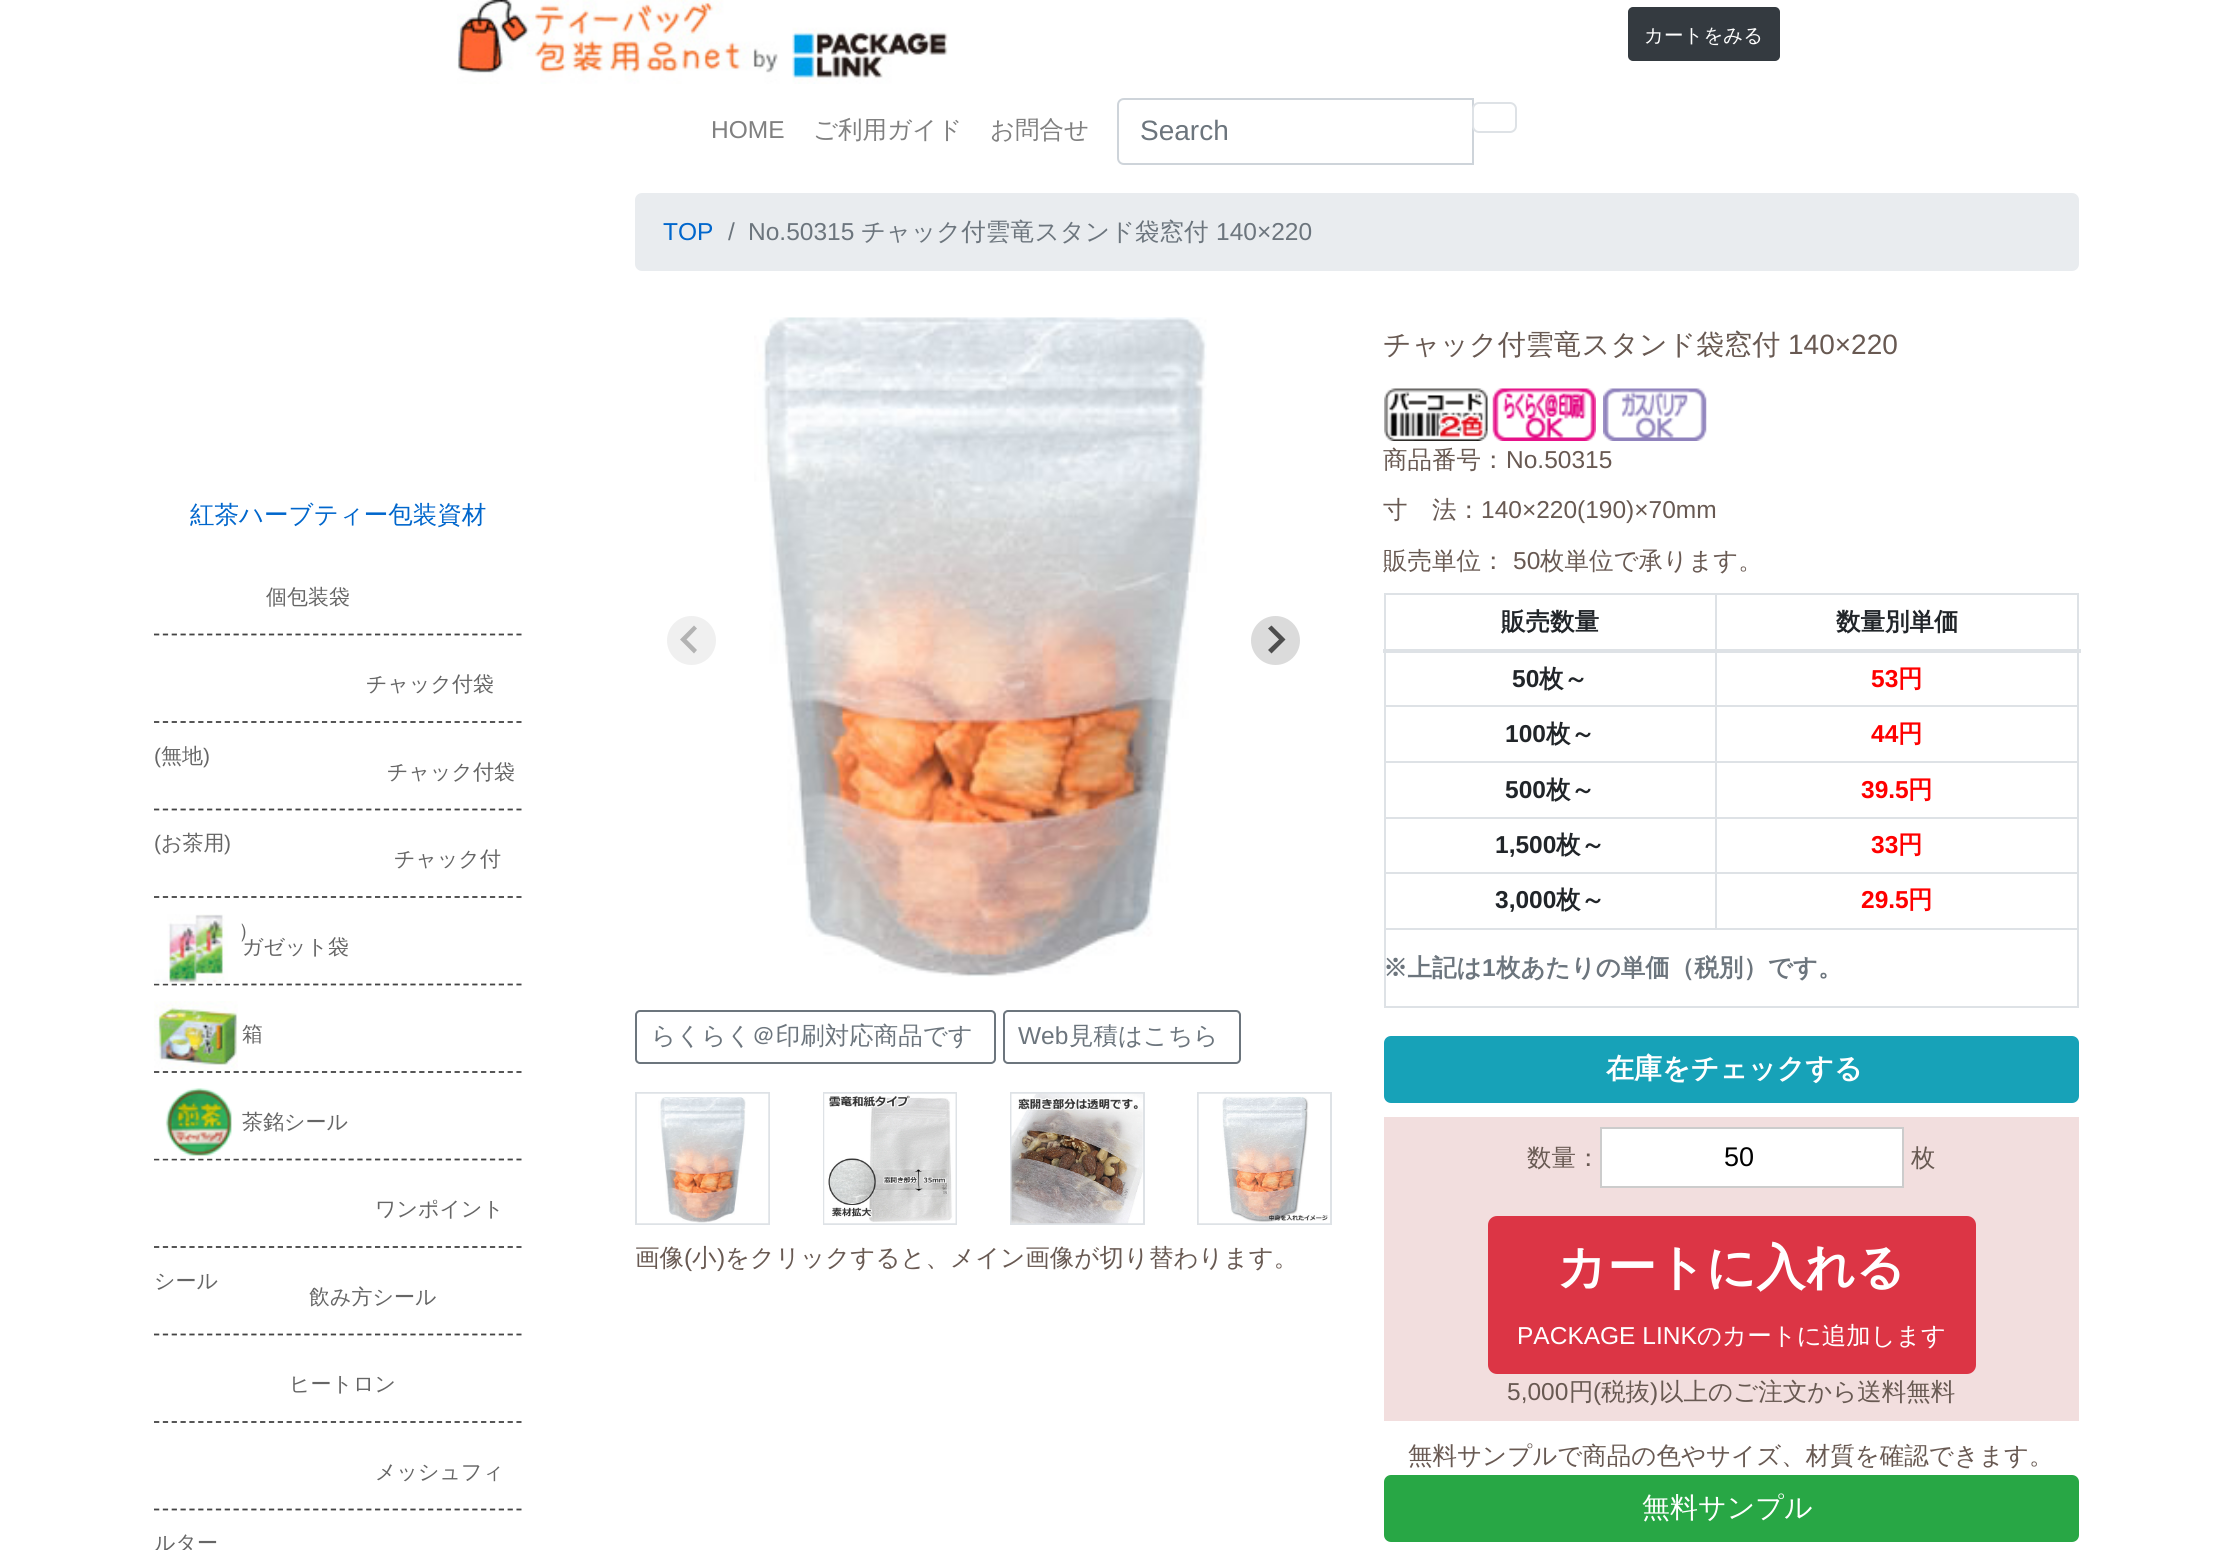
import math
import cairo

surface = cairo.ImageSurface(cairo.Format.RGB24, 2215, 1550)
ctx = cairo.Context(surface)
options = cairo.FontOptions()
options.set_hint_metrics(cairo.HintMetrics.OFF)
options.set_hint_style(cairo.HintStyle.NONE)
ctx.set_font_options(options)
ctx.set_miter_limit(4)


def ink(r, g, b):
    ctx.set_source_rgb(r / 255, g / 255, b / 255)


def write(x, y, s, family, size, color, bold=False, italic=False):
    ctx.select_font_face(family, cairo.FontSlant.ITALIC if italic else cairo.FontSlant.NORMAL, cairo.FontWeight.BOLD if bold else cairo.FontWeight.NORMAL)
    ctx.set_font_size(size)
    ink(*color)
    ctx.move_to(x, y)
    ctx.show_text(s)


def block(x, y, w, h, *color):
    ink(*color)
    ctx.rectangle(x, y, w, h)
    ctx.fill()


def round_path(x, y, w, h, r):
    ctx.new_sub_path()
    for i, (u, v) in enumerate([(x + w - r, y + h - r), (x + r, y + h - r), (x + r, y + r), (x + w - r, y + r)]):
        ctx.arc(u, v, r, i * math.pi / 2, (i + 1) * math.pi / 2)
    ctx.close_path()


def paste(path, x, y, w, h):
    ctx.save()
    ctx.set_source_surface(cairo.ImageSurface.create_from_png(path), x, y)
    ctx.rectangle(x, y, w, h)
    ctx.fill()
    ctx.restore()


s1 = dict(family="WenQuanYi Zen Hei Medium", size=19.5, color=(255, 255, 255))
s2 = dict(family="Liberation Sans", size=24.5, color=(128, 128, 128))
s3 = dict(family="WenQuanYi Zen Hei Medium", size=24.5, color=(128, 128, 128))
s4 = dict(family="Liberation Sans", size=28, color=(108, 117, 125))
s5 = dict(family="WenQuanYi Zen Hei Medium", size=24.5, color=(0, 102, 204))
s6 = dict(family="WenQuanYi Zen Hei Medium", size=21, color=(102, 102, 102))
s7 = dict(family="Liberation Sans", size=21, color=(102, 102, 102))
s8 = dict(family="Liberation Sans", size=24.5, color=(0, 102, 204))
s9 = dict(family="Liberation Sans", size=24.5, color=(108, 117, 125))
s10 = dict(family="WenQuanYi Zen Hei Medium", size=24.5, color=(108, 117, 125))
s11 = dict(family="WenQuanYi Zen Hei Medium", size=24.5, color=(104, 89, 82))
s12 = dict(family="Liberation Sans", size=24.5, color=(104, 89, 82))
s13 = dict(family="WenQuanYi Zen Hei Medium", size=28, color=(104, 89, 82))
s14 = dict(family="Liberation Sans", size=28, color=(104, 89, 82))
s15 = dict(family="WenQuanYi Zen Hei", size=24.5, color=(33, 37, 41), bold=True)
s16 = dict(family="Liberation Sans", size=24.5, color=(33, 37, 41), bold=True)
s17 = dict(family="Liberation Sans", size=24.5, color=(255, 0, 0), bold=True)
s18 = dict(family="WenQuanYi Zen Hei", size=24.5, color=(255, 0, 0), bold=True)
s19 = dict(family="WenQuanYi Zen Hei", size=24.5, color=(108, 117, 125), bold=True)
s20 = dict(family="Liberation Sans", size=24.5, color=(108, 117, 125), bold=True)
s21 = dict(family="WenQuanYi Zen Hei", size=28, color=(255, 255, 255), bold=True)
s22 = dict(family="Liberation Sans", size=27, color=(0, 0, 0))
s23 = dict(family="WenQuanYi Zen Hei", size=49, color=(255, 255, 255), bold=True)
s24 = dict(family="Liberation Sans", size=24.5, color=(255, 255, 255))
s25 = dict(family="WenQuanYi Zen Hei Medium", size=24.5, color=(255, 255, 255))
s26 = dict(family="WenQuanYi Zen Hei Medium", size=28, color=(255, 255, 255))

ink(255, 255, 255)
ctx.paint()
paste("pic1.png", 457, 0, 491, 84)
ink(52, 58, 64)
round_path(1629, 8, 150, 52, 4)
ctx.fill_preserve()
ctx.stroke()
write(1644, 42, "カートをみる", **s1)
write(711, 138, "HOME", **s2)
write(813, 138, "ご利用ガイド", **s3)
write(990, 138, "お問合せ", **s3)
ctx.new_path()
ctx.move_to(1124, 99)
ctx.line_to(1473, 99)
ctx.line_to(1473, 164)
ctx.line_to(1124, 164)
ctx.curve_to(1120.5, 164, 1118, 161.5, 1118, 158)
ctx.line_to(1118, 105)
ctx.curve_to(1118, 101.5, 1120.5, 99, 1124, 99)
ctx.close_path()
ink(206, 212, 218)
ctx.stroke()
write(1140, 140, "Search", **s4)
ink(255, 255, 255)
round_path(1473, 103, 43, 29, 6)
ctx.fill_preserve()
ink(222, 226, 230)
ctx.stroke()
write(190, 523, "紅茶ハーブティー包装資材", **s5)
ctx.new_path()
ctx.move_to(154, 634.5)
ctx.line_to(521.5, 634.5)
ink(68, 68, 68)
ctx.set_line_width(1.8)
ctx.set_dash([5.25, 3.59])
ctx.stroke()
write(266, 604, "個包装袋", **s6)
ctx.new_path()
ctx.move_to(154, 722)
ctx.line_to(521.5, 722)
ink(68, 68, 68)
ctx.stroke()
write(366, 691, "チャック付袋", **s6)
write(154, 763, "(", **s7)
write(161, 763, "無地", **s6)
write(203, 763, ")", **s7)
ctx.new_path()
ctx.move_to(154, 809.5)
ctx.line_to(521.5, 809.5)
ink(68, 68, 68)
ctx.stroke()
write(387, 779, "チャック付袋", **s6)
write(154, 850, "(", **s7)
write(161, 850, "お茶用", **s6)
write(224, 850, ")", **s7)
ctx.new_path()
ctx.move_to(154, 897)
ctx.line_to(521.5, 897)
ink(68, 68, 68)
ctx.stroke()
write(394, 866, "チャック付", **s6)
write(238, 938, "）", **s6)
ctx.new_path()
ctx.move_to(154, 984.5)
ctx.line_to(521.5, 984.5)
ink(68, 68, 68)
ctx.stroke()
paste("pic2.png", 154, 914, 88, 70)
write(242, 954, "ガゼット袋", **s6)
ctx.new_path()
ctx.move_to(154, 1072)
ctx.line_to(521.5, 1072)
ink(68, 68, 68)
ctx.stroke()
paste("pic3.png", 154, 1001, 84, 70)
write(242, 1041, "箱", **s6)
ctx.new_path()
ctx.move_to(154, 1159.5)
ctx.line_to(521.5, 1159.5)
ink(68, 68, 68)
ctx.stroke()
paste("pic4.png", 154, 1088, 85, 71)
write(242, 1129, "茶銘シール", **s6)
ctx.new_path()
ctx.move_to(154, 1247)
ctx.line_to(521.5, 1247)
ink(68, 68, 68)
ctx.stroke()
write(375, 1216, "ワンポイント", **s6)
write(154, 1288, "シール", **s6)
ctx.new_path()
ctx.move_to(154, 1334.5)
ctx.line_to(521.5, 1334.5)
ink(68, 68, 68)
ctx.stroke()
write(309, 1304, "飲み方シール", **s6)
ctx.new_path()
ctx.move_to(154, 1422)
ctx.line_to(521.5, 1422)
ink(68, 68, 68)
ctx.stroke()
write(289, 1391, "ヒートロン", **s6)
ctx.new_path()
ctx.move_to(154, 1509.5)
ctx.line_to(521.5, 1509.5)
ink(68, 68, 68)
ctx.stroke()
write(375, 1479, "メッシュフィ", **s6)
write(154, 1550, "ルター", **s6)
ink(233, 236, 239)
round_path(635, 193, 1444, 78, 7)
ctx.fill()
write(663, 240, "TOP", **s8)
write(728, 240, "/", **s9)
write(748, 240, "No.50315", **s9)
write(861, 240, "チャック付雲竜スタンド袋窓付", **s10)
write(1216, 240, "140×220", **s9)
paste("pic5.png", 754, 317, 453, 660)
ink(240, 240, 240)
ctx.arc(691.5, 640.5, 24.5, 0, 2 * math.pi)
ctx.fill()
ink(179, 179, 179)
ctx.new_path()
ctx.move_to(694, 625.5)
ctx.line_to(697, 628.5)
ctx.line_to(686.5, 639.5)
ctx.line_to(697, 650)
ctx.line_to(694, 653.5)
ctx.line_to(680, 639.5)
ctx.close_path()
ctx.fill()
ink(219, 219, 219)
ctx.arc(1275.5, 640.5, 24.5, 0, 2 * math.pi)
ctx.fill()
ink(77, 77, 77)
ctx.new_path()
ctx.move_to(1271.5, 625.5)
ctx.line_to(1268, 628.5)
ctx.line_to(1279, 639.5)
ctx.line_to(1268, 650)
ctx.line_to(1271.5, 653.5)
ctx.line_to(1285.5, 639.5)
ctx.close_path()
ctx.fill()
round_path(636, 1011, 359, 52, 4)
ink(108, 117, 125)
ctx.set_line_width(2)
ctx.set_dash([])
ctx.stroke()
write(651, 1044, "らくらく＠印刷対応商品です", **s10)
round_path(1004, 1011, 236, 52, 4)
ctx.stroke()
write(1018, 1044, "Web", **s9)
write(1069, 1044, "見積はこちら", **s10)
ctx.rectangle(636, 1093, 133, 131)
ink(222, 226, 230)
ctx.stroke()
paste("pic6.png", 637, 1093, 132, 131)
ctx.rectangle(824, 1093, 132, 131)
ctx.stroke()
paste("pic7.png", 824, 1093, 132, 131)
ctx.rectangle(1011, 1093, 133, 131)
ctx.stroke()
paste("pic8.png", 1011, 1093, 132, 131)
ctx.rectangle(1198, 1093, 133, 131)
ctx.stroke()
paste("pic9.png", 1198, 1093, 132, 131)
write(635, 1266, "画像", **s11)
write(684, 1266, "(", **s12)
write(692, 1266, "小", **s11)
write(717, 1266, ")", **s12)
write(725, 1266, "をクリックすると、メイン画像が切り替わります。", **s11)
write(1383, 354, "チャック付雲竜スタンド袋窓付", **s13)
write(1788, 354, "140×220", **s14)
paste("pic10.png", 1384, 388, 104, 53)
paste("pic11.png", 1492, 388, 104, 53)
paste("pic12.png", 1603, 388, 104, 53)
write(1383, 468, "商品番号：", **s11)
write(1506, 468, "No.50315", **s12)
write(1383, 518, "寸　法：", **s11)
write(1481, 518, "140×220(190)×70mm", **s12)
write(1383, 569, "販売単位：", **s11)
write(1513, 569, "50", **s12)
write(1540, 569, "枚単位で承ります。", **s11)
block(1384, 593, 695, 2, 222, 226, 230)
block(2077, 593, 2, 415, 222, 226, 230)
block(1384, 1006, 695, 2, 222, 226, 230)
block(1384, 593, 2, 415, 222, 226, 230)
write(1501, 630, "販売数量", **s15)
block(1715, 705, 364, 2, 222, 226, 230)
block(1715, 761, 364, 2, 222, 226, 230)
block(1715, 817, 364, 2, 222, 226, 230)
block(1715, 872, 364, 2, 222, 226, 230)
block(1715, 928, 364, 2, 222, 226, 230)
block(1715, 872, 2, 57, 222, 226, 230)
block(1384, 872, 333, 2, 222, 226, 230)
block(1715, 817, 2, 56, 222, 226, 230)
block(1384, 817, 333, 2, 222, 226, 230)
block(1715, 761, 2, 58, 222, 226, 230)
block(1384, 761, 333, 2, 222, 226, 230)
block(1715, 705, 2, 58, 222, 226, 230)
block(1384, 705, 333, 2, 222, 226, 230)
block(1715, 593, 2, 114, 222, 226, 230)
block(1383, 649, 698, 4, 222, 226, 230)
write(1836, 630, "数量別単価", **s15)
write(1512, 687, "50", **s16)
write(1539, 687, "枚～", **s15)
write(1871, 687, "53", **s17)
write(1898, 687, "円", **s18)
write(1505, 742, "100", **s16)
write(1546, 742, "枚～", **s15)
write(1871, 742, "44", **s17)
write(1898, 742, "円", **s18)
write(1505, 798, "500", **s16)
write(1546, 798, "枚～", **s15)
write(1861, 798, "39.5", **s17)
write(1908, 798, "円", **s18)
write(1495, 853, "1,500", **s16)
write(1556, 853, "枚～", **s15)
write(1871, 853, "33", **s17)
write(1898, 853, "円", **s18)
block(1384, 928, 333, 2, 222, 226, 230)
write(1495, 908, "3,000", **s16)
write(1556, 908, "枚～", **s15)
write(1861, 908, "29.5", **s17)
write(1908, 908, "円", **s18)
write(1383, 976, "※上記は", **s19)
write(1482, 976, "1", **s20)
write(1496, 976, "枚あたりの単価（税別）です。", **s19)
ink(23, 162, 184)
round_path(1385, 1037, 693, 65, 6)
ctx.fill_preserve()
ctx.stroke()
write(1606, 1078, "在庫をチェックする", **s21)
block(1384, 1117, 695, 304, 242, 222, 222)
write(1527, 1166, "数量：", **s11)
ink(255, 255, 255)
ctx.rectangle(1601, 1128, 302, 59)
ctx.fill_preserve()
ink(204, 204, 204)
ctx.stroke()
write(1724, 1166, "50", **s22)
write(1911, 1166, "枚", **s11)
ink(220, 53, 69)
round_path(1489, 1217, 486, 156, 8)
ctx.fill_preserve()
ctx.stroke()
write(1557, 1284, "カートに入れる", **s23)
write(1517, 1344, "PACKAGE LINK", **s24)
write(1697, 1344, "のカートに追加します", **s25)
write(1507, 1400, "5,000", **s12)
write(1569, 1400, "円", **s11)
write(1593, 1400, "(", **s12)
write(1601, 1400, "税抜", **s11)
write(1650, 1400, ")", **s12)
write(1659, 1400, "以上のご注文から送料無料", **s11)
write(1408, 1464, "無料サンプルで商品の色やサイズ、材質を確認できます。", **s11)
ink(40, 167, 69)
round_path(1385, 1476, 693, 65, 6)
ctx.fill_preserve()
ctx.stroke()
write(1642, 1517, "無料サンプル", **s26)
surface.write_to_png("screenshot.png")
